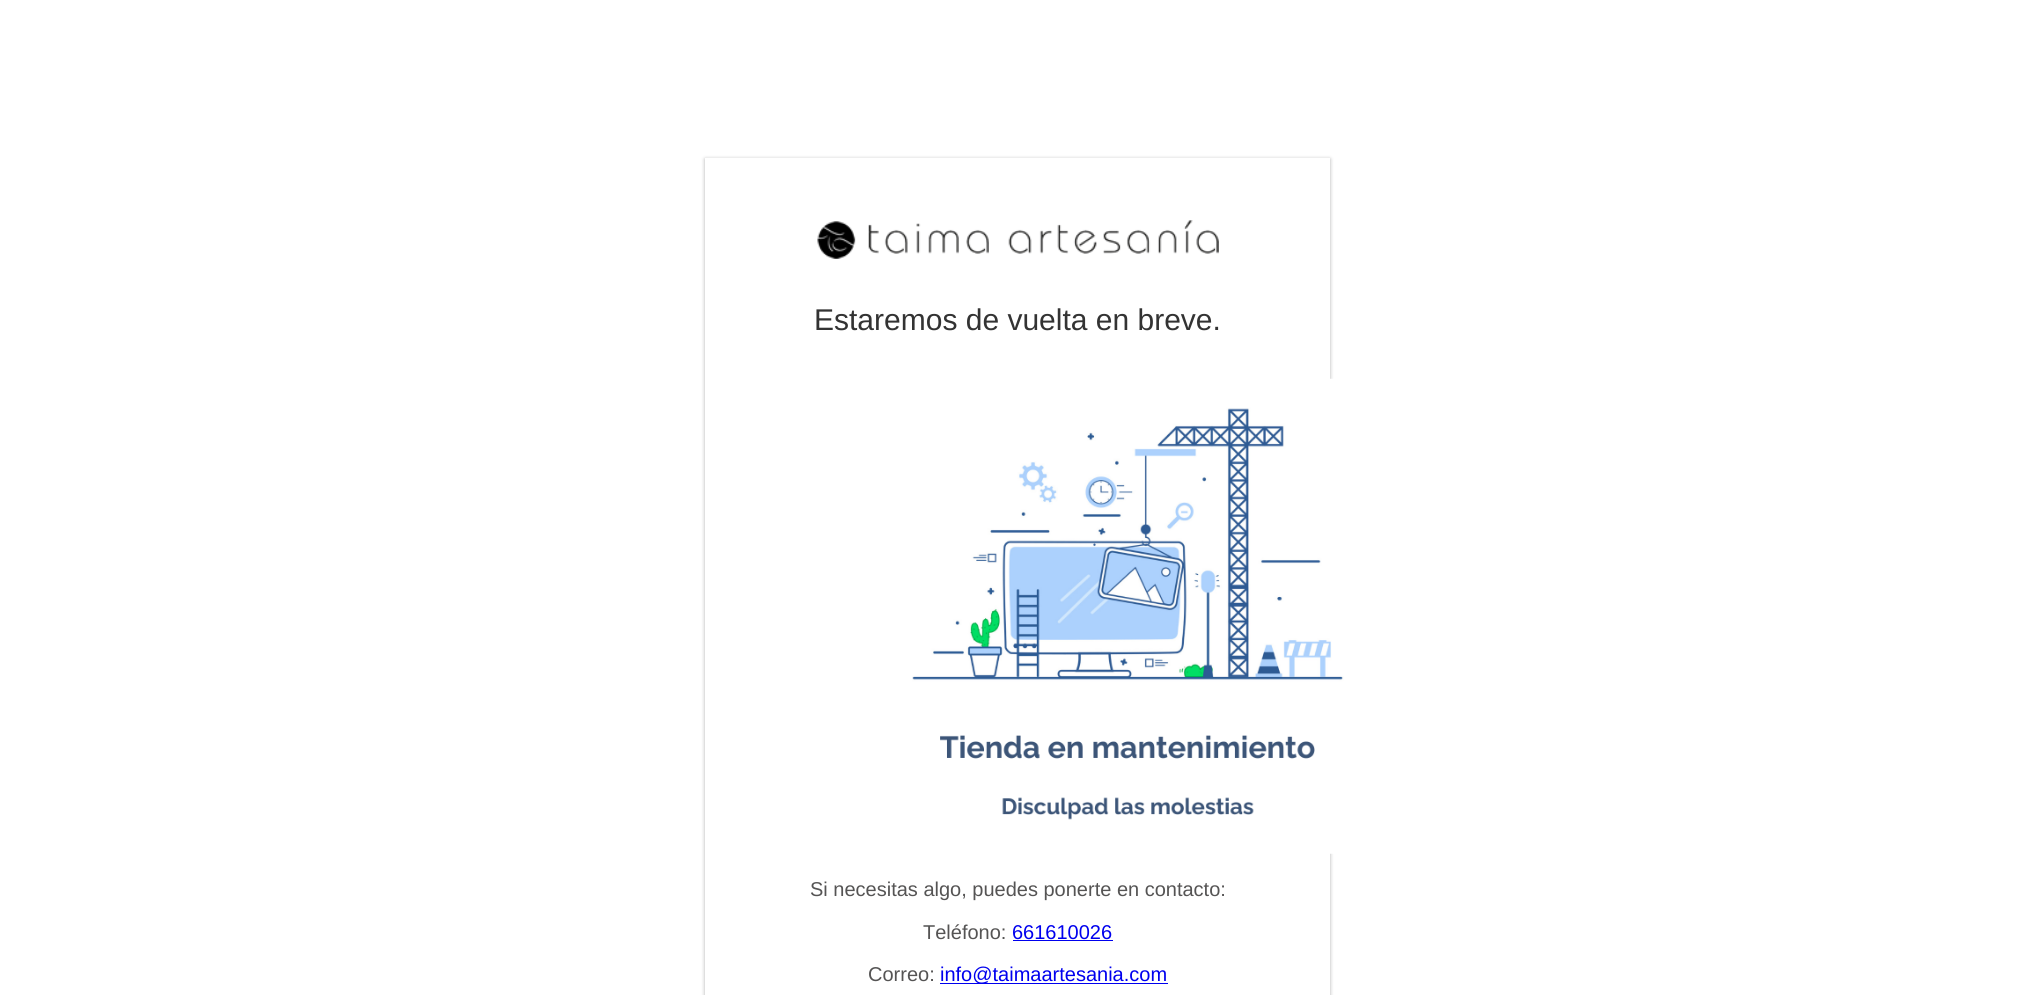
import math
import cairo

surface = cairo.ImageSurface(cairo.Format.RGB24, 2035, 995)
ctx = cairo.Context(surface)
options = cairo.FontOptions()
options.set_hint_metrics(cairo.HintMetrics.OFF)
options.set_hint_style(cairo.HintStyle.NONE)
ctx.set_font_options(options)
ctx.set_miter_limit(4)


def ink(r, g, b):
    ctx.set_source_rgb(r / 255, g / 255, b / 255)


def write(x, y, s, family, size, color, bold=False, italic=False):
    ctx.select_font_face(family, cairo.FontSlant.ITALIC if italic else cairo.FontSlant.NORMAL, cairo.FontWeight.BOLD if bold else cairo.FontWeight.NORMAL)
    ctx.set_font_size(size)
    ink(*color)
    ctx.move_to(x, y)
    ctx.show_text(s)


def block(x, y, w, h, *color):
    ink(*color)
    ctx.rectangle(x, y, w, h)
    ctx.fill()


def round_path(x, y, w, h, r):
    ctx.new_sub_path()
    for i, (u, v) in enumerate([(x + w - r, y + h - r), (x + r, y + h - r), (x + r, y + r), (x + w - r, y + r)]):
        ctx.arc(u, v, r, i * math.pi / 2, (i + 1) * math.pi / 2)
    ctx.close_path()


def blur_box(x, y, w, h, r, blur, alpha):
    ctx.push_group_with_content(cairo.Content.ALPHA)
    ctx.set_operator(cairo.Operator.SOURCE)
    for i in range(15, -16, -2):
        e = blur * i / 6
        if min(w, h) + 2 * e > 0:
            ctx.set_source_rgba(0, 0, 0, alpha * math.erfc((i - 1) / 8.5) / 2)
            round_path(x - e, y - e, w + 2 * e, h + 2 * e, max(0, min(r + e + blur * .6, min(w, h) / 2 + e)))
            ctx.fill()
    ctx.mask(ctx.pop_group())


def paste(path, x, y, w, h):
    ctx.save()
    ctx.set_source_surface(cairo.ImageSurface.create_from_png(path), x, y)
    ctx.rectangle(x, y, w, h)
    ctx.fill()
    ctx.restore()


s1 = dict(family="Liberation Sans", size=30, color=(51, 51, 51))
s2 = dict(family="Liberation Sans", size=20, color=(85, 84, 84))
s3 = dict(family="Liberation Sans", size=20, color=(0, 0, 238))

ink(255, 255, 255)
ctx.paint()
ctx.save()
ctx.set_fill_rule(cairo.FillRule.EVEN_ODD)
ctx.new_path()
ctx.move_to(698, 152)
ctx.line_to(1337, 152)
ctx.line_to(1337, 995)
ctx.line_to(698, 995)
ctx.close_path()
ctx.move_to(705, 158)
ctx.line_to(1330, 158)
ctx.line_to(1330, 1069)
ctx.line_to(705, 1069)
ctx.close_path()
ctx.clip()
ink(0, 0, 0)
blur_box(705, 159, 625, 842, 0, 2, 0.3)
ctx.restore()
paste("pic1.png", 817, 220, 402, 39)
write(814, 330, "Estaremos de vuelta en breve.", **s1)
paste("pic2.png", 912, 378, 432, 476)
write(810, 896, "Si necesitas algo, puedes ponerte en contacto:", **s2)
write(923, 939, "Teléfono:", **s2)
write(1012, 939, "661610026", **s3)
block(1013, 940, 100, 1, 0, 0, 238)
write(868, 981, "Correo:", **s2)
block(940, 983, 228, 1, 0, 0, 238)
write(940, 981, "info@taimaartesania.com", **s3)
surface.write_to_png("screenshot.png")
